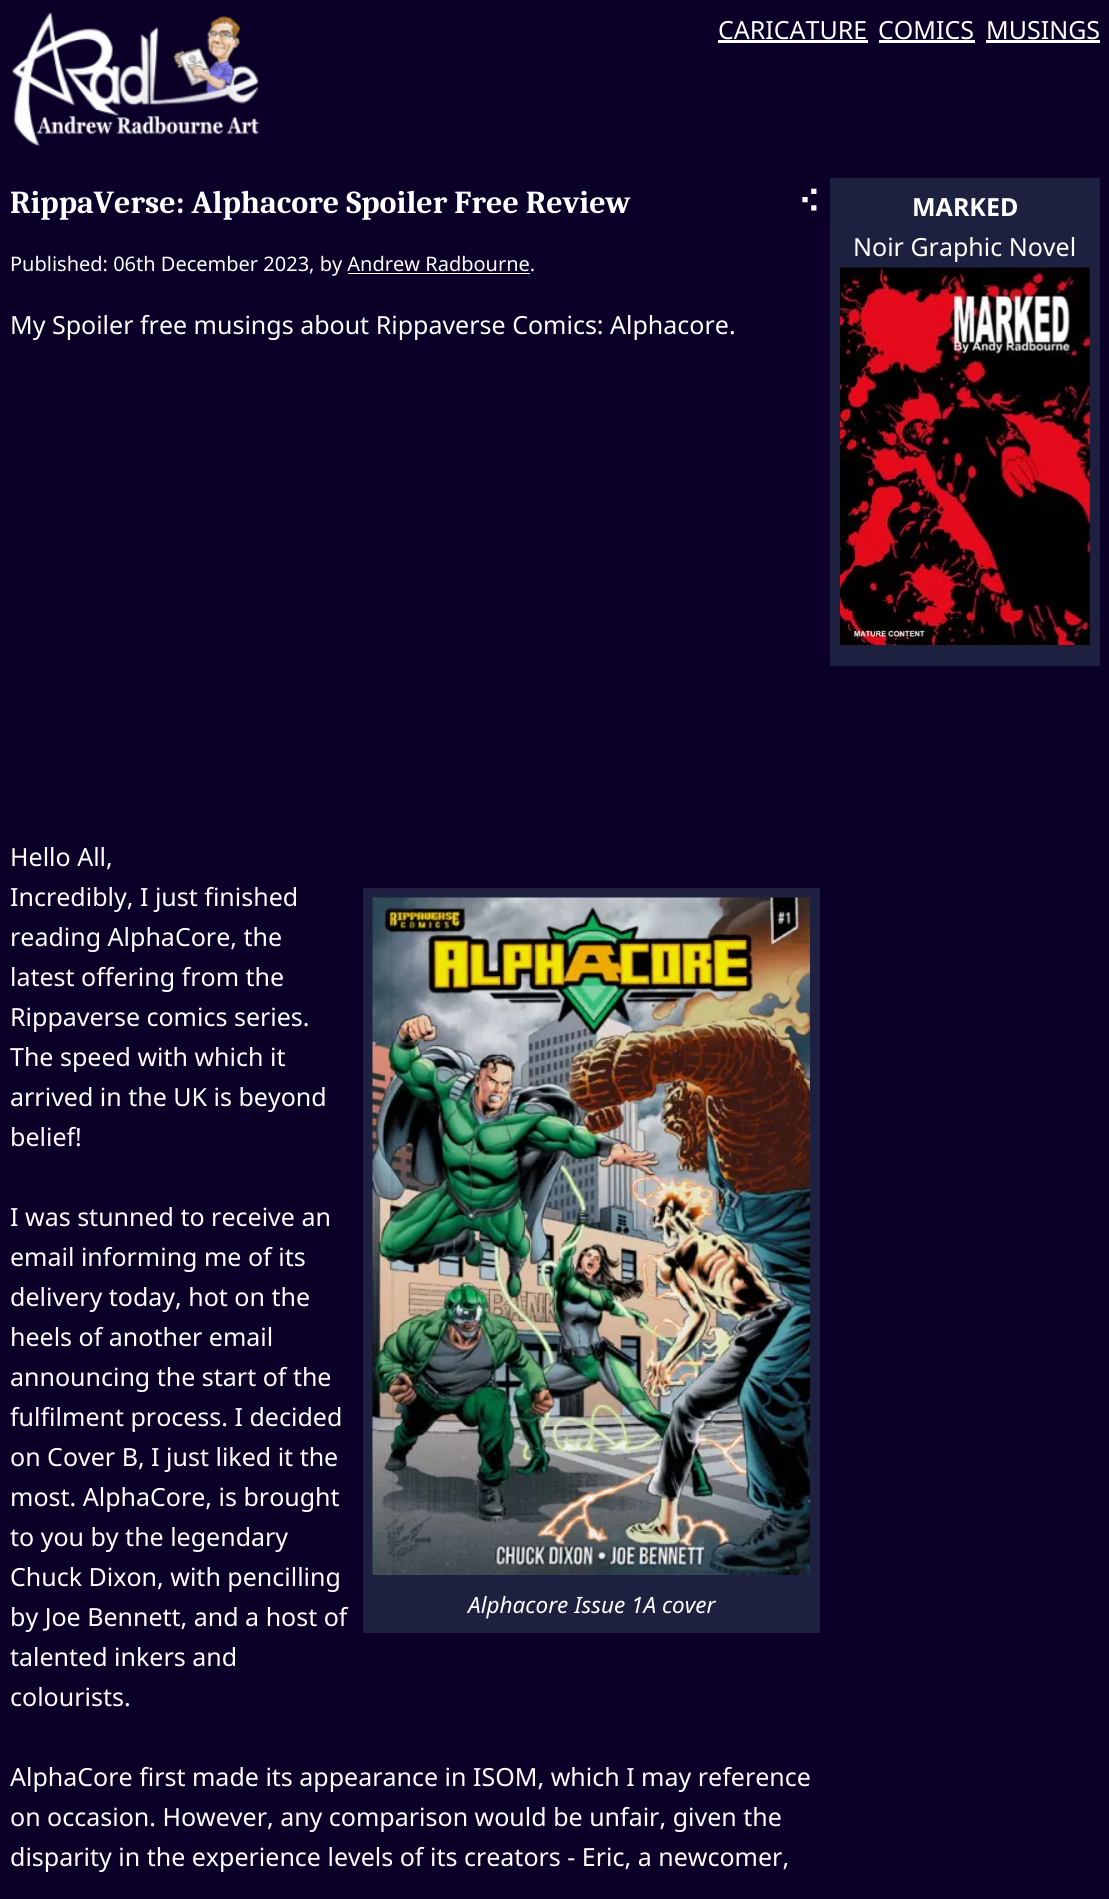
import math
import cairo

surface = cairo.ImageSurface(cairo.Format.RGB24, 1109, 1899)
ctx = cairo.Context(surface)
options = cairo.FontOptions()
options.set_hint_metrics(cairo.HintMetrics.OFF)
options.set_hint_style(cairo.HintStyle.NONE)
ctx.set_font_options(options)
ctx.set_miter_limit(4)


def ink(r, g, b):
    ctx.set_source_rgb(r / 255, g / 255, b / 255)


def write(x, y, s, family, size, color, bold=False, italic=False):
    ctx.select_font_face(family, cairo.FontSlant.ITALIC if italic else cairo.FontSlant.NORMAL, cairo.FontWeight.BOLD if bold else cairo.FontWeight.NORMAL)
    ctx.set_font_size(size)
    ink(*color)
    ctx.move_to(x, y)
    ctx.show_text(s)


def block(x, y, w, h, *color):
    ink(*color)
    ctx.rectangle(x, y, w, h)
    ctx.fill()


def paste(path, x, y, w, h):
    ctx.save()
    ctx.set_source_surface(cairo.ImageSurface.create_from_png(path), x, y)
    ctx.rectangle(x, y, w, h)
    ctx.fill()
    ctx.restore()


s1 = dict(family="Noto Sans", size=25, color=(255, 255, 255))
s2 = dict(family="Caladea", size=32, color=(255, 255, 255), bold=True)
s3 = dict(family="DejaVu Sans", size=30, color=(255, 255, 255), bold=True)
s4 = dict(family="Noto Sans", size=20, color=(255, 255, 255))
s5 = dict(family="Noto Sans", size=22.5, color=(255, 255, 255), italic=True)
s6 = dict(family="Noto Sans", size=25, color=(255, 255, 255), bold=True)

ink(10, 0, 40)
ctx.paint()
paste("pic1.png", 12, 12, 247, 135)
write(718, 39, "CARICATURE", **s1)
block(718, 40, 150, 3, 255, 255, 255)
write(878, 39, "COMICS", **s1)
block(879, 40, 96, 3, 255, 255, 255)
write(986, 39, "MUSINGS", **s1)
block(986, 40, 114, 3, 255, 255, 255)
write(10, 213, "RippaVerse: Alphacore Spoiler Free Review", **s2)
write(798, 213, "⠪", **s3)
write(10, 271, "Published: 06th December 2023, by Andrew Radbourne.", **s4)
block(348, 273, 182, 1, 255, 255, 255)
write(10, 334, "My Spoiler free musings about Rippaverse Comics: Alphacore.", **s1)
write(10, 866, "Hello All,", **s1)
write(10, 906, "Incredibly, I just finished", **s1)
write(10, 946, "reading AlphaCore, the", **s1)
write(10, 986, "latest offering from the", **s1)
write(10, 1026, "Rippaverse comics series.", **s1)
write(10, 1066, "The speed with which it", **s1)
write(10, 1106, "arrived in the UK is beyond", **s1)
write(10, 1146, "belief!", **s1)
write(10, 1226, "I was stunned to receive an", **s1)
write(10, 1266, "email informing me of its", **s1)
write(10, 1306, "delivery today, hot on the", **s1)
write(10, 1346, "heels of another email", **s1)
write(10, 1386, "announcing the start of the", **s1)
write(10, 1426, "fulfilment process. I decided", **s1)
write(10, 1466, "on Cover B, I just liked it the", **s1)
write(10, 1506, "most. AlphaCore, is brought", **s1)
write(10, 1546, "to you by the legendary", **s1)
write(10, 1586, "Chuck Dixon, with pencilling", **s1)
write(10, 1626, "by Joe Bennett, and a host of", **s1)
block(363, 888, 457, 745, 29, 32, 63)
paste("pic2.png", 372, 897, 438, 678)
write(468, 1613, "Alphacore Issue 1A cover", **s5)
write(10, 1666, "talented inkers and", **s1)
write(10, 1706, "colourists.", **s1)
write(10, 1786, "AlphaCore first made its appearance in ISOM, which I may reference", **s1)
write(10, 1826, "on occasion. However, any comparison would be unfair, given the", **s1)
write(10, 1866, "disparity in the experience levels of its creators - Eric, a newcomer,", **s1)
block(830, 178, 270, 488, 29, 32, 63)
write(912, 216, "MARKED", **s6)
write(853, 256, "Noir Graphic Novel", **s1)
paste("pic3.png", 840, 267, 250, 378)
surface.write_to_png("screenshot.png")
